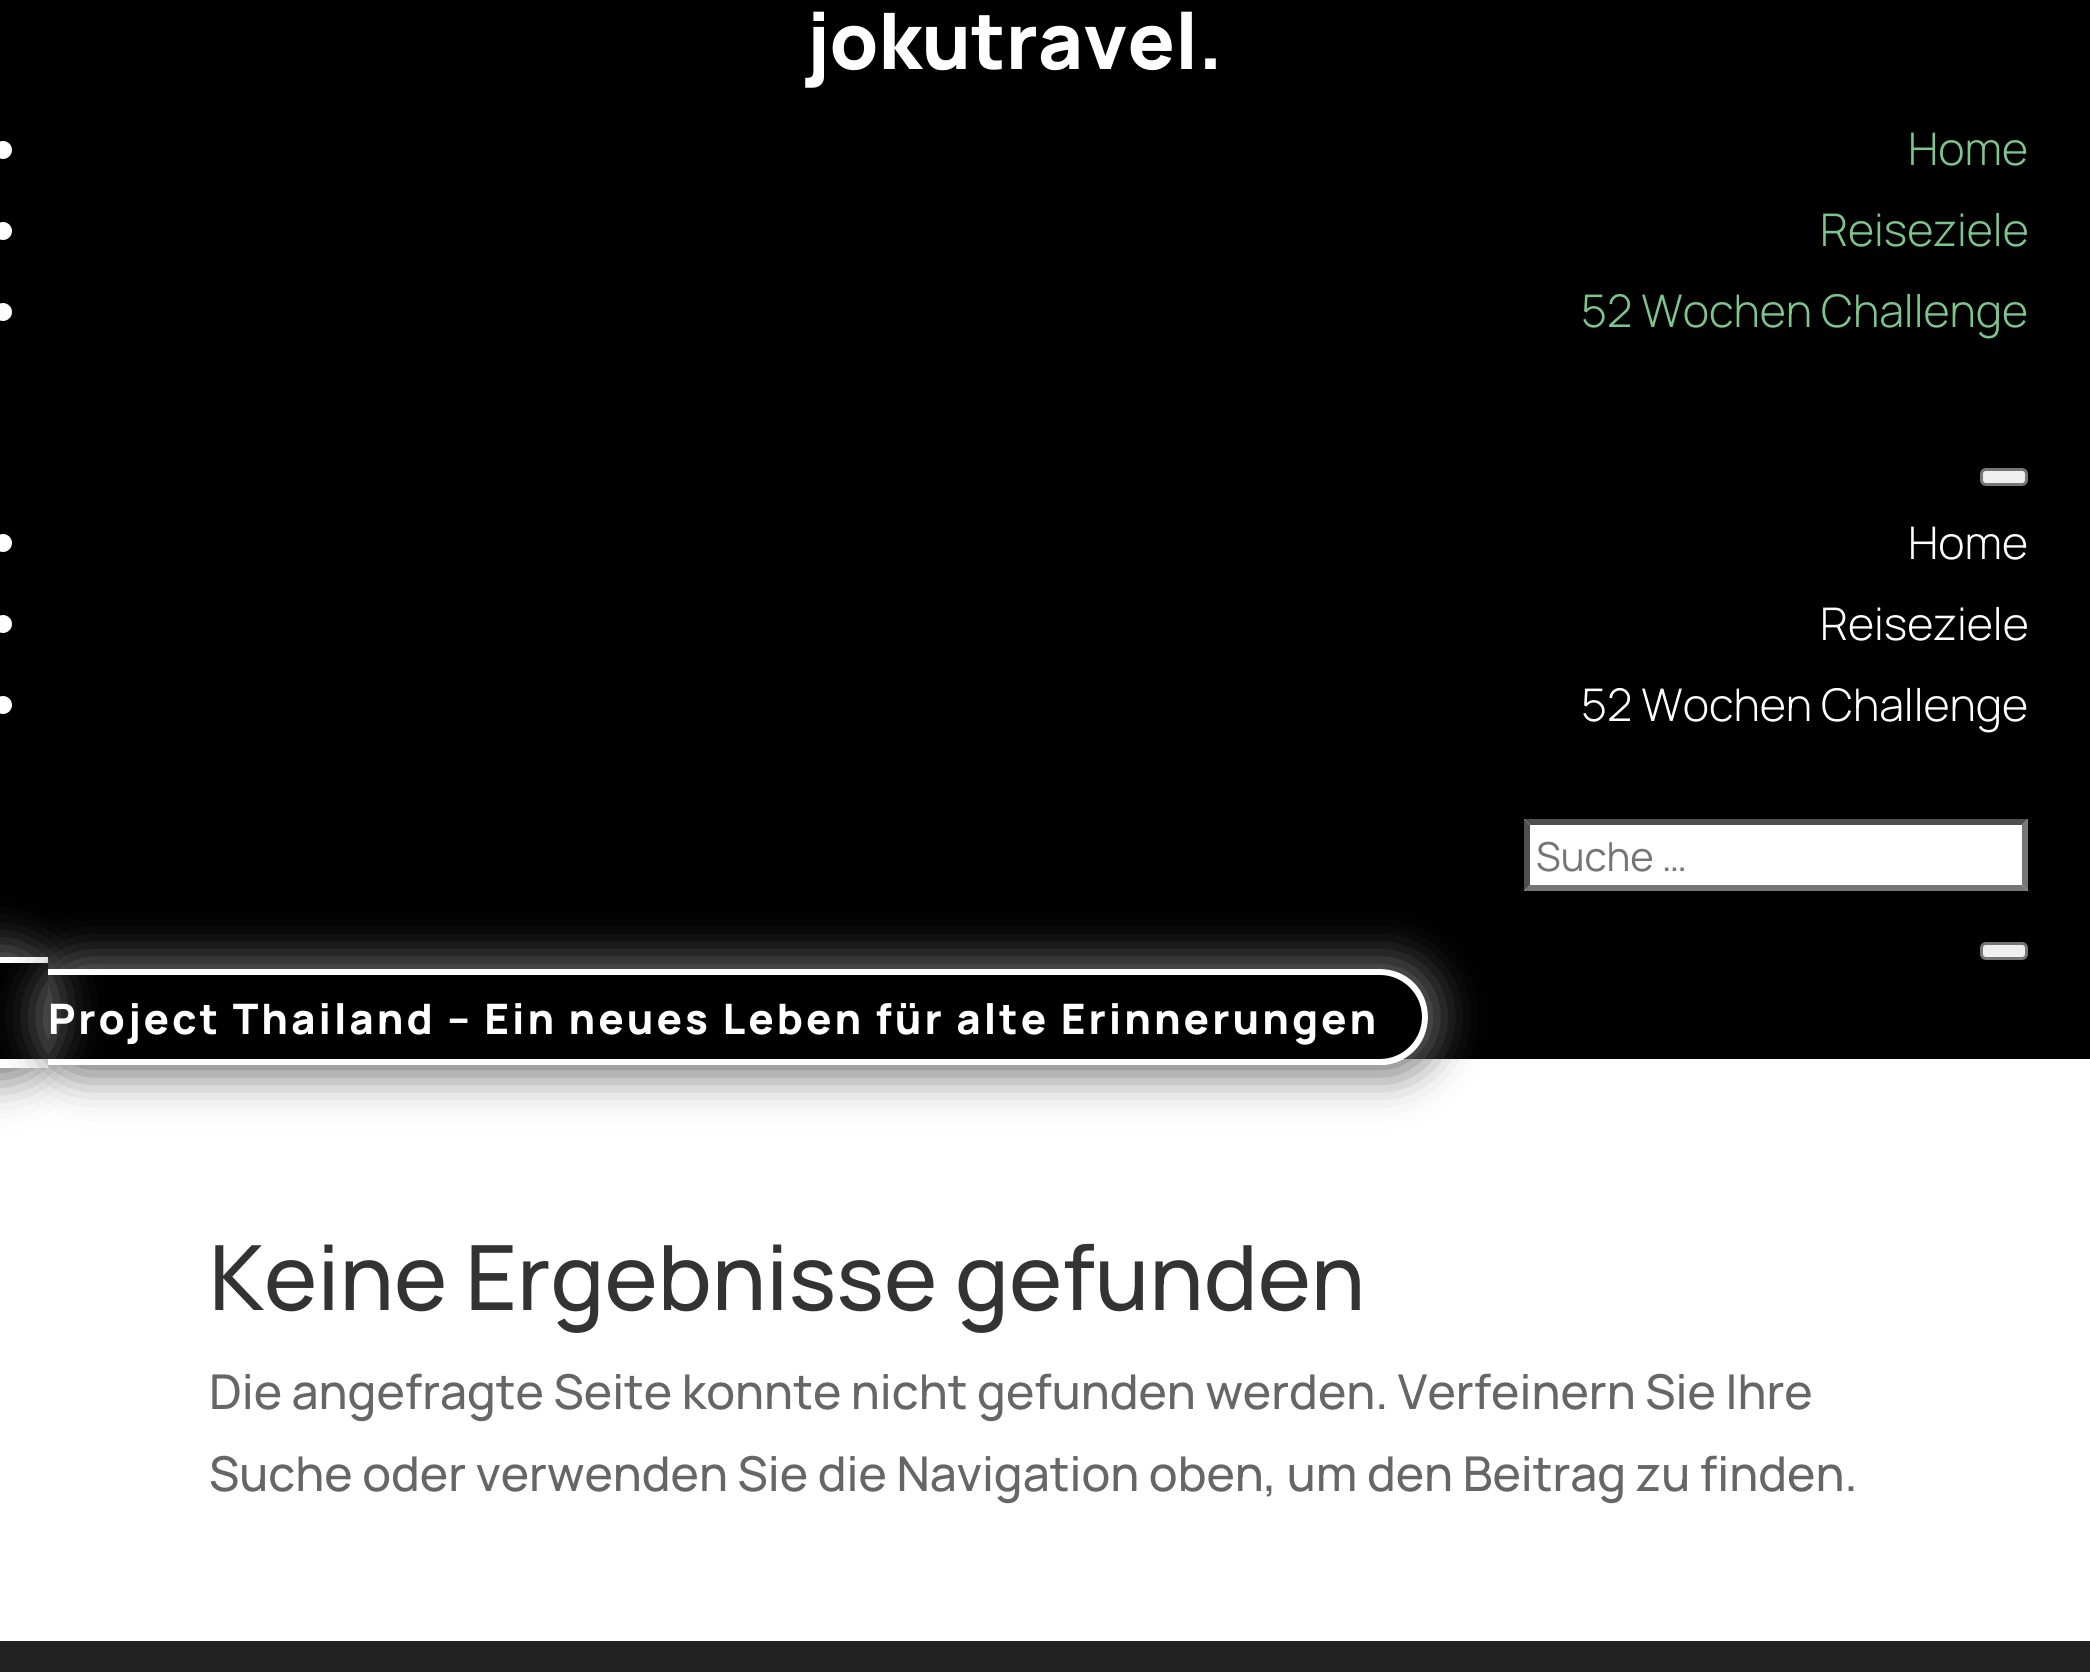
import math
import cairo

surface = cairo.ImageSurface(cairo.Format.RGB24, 2090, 1672)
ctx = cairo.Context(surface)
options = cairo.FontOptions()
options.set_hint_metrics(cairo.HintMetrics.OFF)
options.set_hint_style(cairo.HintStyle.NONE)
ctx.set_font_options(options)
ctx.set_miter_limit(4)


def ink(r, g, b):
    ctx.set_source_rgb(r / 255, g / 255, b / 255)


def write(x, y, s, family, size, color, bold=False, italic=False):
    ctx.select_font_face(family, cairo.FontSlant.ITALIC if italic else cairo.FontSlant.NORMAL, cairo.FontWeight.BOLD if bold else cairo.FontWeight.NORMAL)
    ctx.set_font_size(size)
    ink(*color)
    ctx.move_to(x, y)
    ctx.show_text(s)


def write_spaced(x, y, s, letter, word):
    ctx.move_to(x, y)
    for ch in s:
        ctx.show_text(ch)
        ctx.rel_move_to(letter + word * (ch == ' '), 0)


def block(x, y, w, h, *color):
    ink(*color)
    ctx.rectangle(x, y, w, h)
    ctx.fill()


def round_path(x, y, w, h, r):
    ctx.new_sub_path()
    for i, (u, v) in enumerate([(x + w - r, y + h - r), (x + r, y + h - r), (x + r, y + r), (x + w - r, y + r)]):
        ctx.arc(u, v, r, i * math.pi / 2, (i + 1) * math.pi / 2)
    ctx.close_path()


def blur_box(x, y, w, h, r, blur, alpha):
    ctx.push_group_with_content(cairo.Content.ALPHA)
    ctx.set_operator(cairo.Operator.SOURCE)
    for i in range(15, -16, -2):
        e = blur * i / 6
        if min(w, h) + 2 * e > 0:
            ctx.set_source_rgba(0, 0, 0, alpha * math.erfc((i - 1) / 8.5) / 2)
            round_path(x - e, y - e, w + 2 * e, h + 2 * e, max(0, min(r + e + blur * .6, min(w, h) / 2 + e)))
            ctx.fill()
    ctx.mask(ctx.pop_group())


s1 = dict(family="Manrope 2 ExtraLight", size=78, color=(255, 255, 255))
s2 = dict(family="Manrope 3 ExtraLight", size=45, color=(124, 198, 141))
s3 = dict(family="Manrope 3 ExtraLight", size=45, color=(255, 255, 255))
s4 = dict(family="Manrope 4 ExtraLight", size=40, color=(117, 117, 117))
s5 = dict(family="Manrope ExtraLight", size=90, color=(51, 51, 51))
s6 = dict(family="Manrope ExtraLight", size=48, color=(102, 102, 102))

ink(255, 255, 255)
ctx.paint()
block(0, 0, 2090, 1059, 0, 0, 0)
write(806, 69, "jokutravel.", **s1)
ctx.new_path()
ctx.arc(3, 150, 9, 0, 2 * math.pi)
ctx.fill()
write(1908, 165, "Home", **s2)
ink(255, 255, 255)
ctx.new_path()
ctx.arc(3, 231, 9, 0, 2 * math.pi)
ctx.fill()
write(1820, 246, "Reiseziele", **s2)
ink(255, 255, 255)
ctx.new_path()
ctx.arc(3, 312, 9, 0, 2 * math.pi)
ctx.fill()
write(1581, 327, "52 Wochen Challenge", **s2)
ink(239, 239, 239)
round_path(1981.5, 469.5, 45, 15, 4.5)
ctx.fill_preserve()
ink(118, 118, 118)
ctx.set_line_width(3)
ctx.stroke()
ink(255, 255, 255)
ctx.arc(3, 543, 9, 0, 2 * math.pi)
ctx.fill()
write(1908, 559, "Home", **s3)
ctx.new_path()
ctx.arc(3, 624, 9, 0, 2 * math.pi)
ctx.fill()
write(1820, 640, "Reiseziele", **s3)
ctx.new_path()
ctx.arc(3, 705, 9, 0, 2 * math.pi)
ctx.fill()
write(1581, 721, "52 Wochen Challenge", **s3)
block(1524, 819, 504, 72, 255, 255, 255)
ink(79, 79, 79)
ctx.new_path()
ctx.move_to(1524, 819)
ctx.line_to(2028, 819)
ctx.line_to(2022, 825)
ctx.line_to(1530, 825)
ctx.close_path()
ctx.fill()
ink(118, 118, 118)
ctx.new_path()
ctx.move_to(2028, 819)
ctx.line_to(2028, 891)
ctx.line_to(2022, 885)
ctx.line_to(2022, 825)
ctx.close_path()
ctx.fill()
ctx.new_path()
ctx.move_to(2028, 891)
ctx.line_to(1524, 891)
ctx.line_to(1530, 885)
ctx.line_to(2022, 885)
ctx.close_path()
ctx.fill()
ink(79, 79, 79)
ctx.new_path()
ctx.move_to(1524, 891)
ctx.line_to(1524, 819)
ctx.line_to(1530, 825)
ctx.line_to(1530, 885)
ctx.close_path()
ctx.fill()
write(1536, 871, "Suche …", **s4)
ink(239, 239, 239)
round_path(1981.5, 943.5, 45, 15, 4.5)
ctx.fill_preserve()
ink(118, 118, 118)
ctx.stroke()
ctx.save()
ctx.set_fill_rule(cairo.FillRule.EVEN_ODD)
ctx.new_path()
ctx.move_to(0, 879)
ctx.line_to(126, 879)
ctx.line_to(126, 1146)
ctx.line_to(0, 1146)
ctx.close_path()
ctx.move_to(-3, 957)
ctx.line_to(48, 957)
ctx.line_to(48, 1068)
ctx.line_to(-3, 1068)
ctx.curve_to(-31, 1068, -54, 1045, -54, 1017)
ctx.line_to(-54, 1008)
ctx.curve_to(-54, 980, -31, 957, -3, 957)
ctx.close_path()
ctx.clip()
ink(107, 107, 107)
blur_box(-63, 948, 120, 129, 60, 22.5, 1)
ctx.restore()
ink(255, 255, 255)
ctx.set_fill_rule(cairo.FillRule.EVEN_ODD)
ctx.new_path()
ctx.move_to(-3, 957)
ctx.line_to(48, 957)
ctx.line_to(48, 1068)
ctx.line_to(-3, 1068)
ctx.curve_to(-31, 1068, -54, 1045, -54, 1017)
ctx.line_to(-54, 1008)
ctx.curve_to(-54, 980, -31, 957, -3, 957)
ctx.close_path()
ctx.move_to(-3, 963)
ctx.line_to(48, 963)
ctx.line_to(48, 1062)
ctx.line_to(-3, 1062)
ctx.curve_to(-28, 1062, -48, 1042, -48, 1017)
ctx.line_to(-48, 1008)
ctx.curve_to(-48, 983, -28, 963, -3, 963)
ctx.close_path()
ctx.fill()
ctx.save()
ctx.new_path()
ctx.move_to(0, 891)
ctx.line_to(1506, 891)
ctx.line_to(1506, 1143)
ctx.line_to(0, 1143)
ctx.close_path()
ctx.move_to(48, 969)
ctx.line_to(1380, 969)
ctx.curve_to(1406.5, 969, 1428, 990.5, 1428, 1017)
ctx.curve_to(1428, 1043.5, 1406.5, 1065, 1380, 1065)
ctx.line_to(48, 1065)
ctx.close_path()
ctx.clip()
ink(107, 107, 107)
blur_box(39, 960, 1398, 114, 57, 22.5, 1)
ctx.restore()
ctx.new_path()
ctx.move_to(48, 969)
ctx.line_to(1380, 969)
ctx.curve_to(1407, 969, 1428, 990, 1428, 1017)
ctx.curve_to(1428, 1044, 1407, 1065, 1380, 1065)
ctx.line_to(48, 1065)
ctx.close_path()
ctx.move_to(48, 975)
ctx.line_to(1380, 975)
ctx.curve_to(1403, 975, 1422, 994, 1422, 1017)
ctx.curve_to(1422, 1040, 1403, 1059, 1380, 1059)
ctx.line_to(48, 1059)
ctx.close_path()
ctx.fill()
ctx.select_font_face("Manrope 2 ExtraLight")
ctx.set_font_size(42)
write_spaced(48, 1034, "Project Thailand – Ein neues Leben für alte Erinnerungen", 3, 0)
write(209, 1310, "Keine Ergebnisse gefunden", **s5)
write(209, 1409, "Die angefragte Seite konnte nicht gefunden werden. Verfeinern Sie Ihre", **s6)
write(209, 1491, "Suche oder verwenden Sie die Navigation oben, um den Beitrag zu finden.", **s6)
block(0, 1641, 2090, 31, 34, 34, 34)
surface.write_to_png("screenshot.png")
